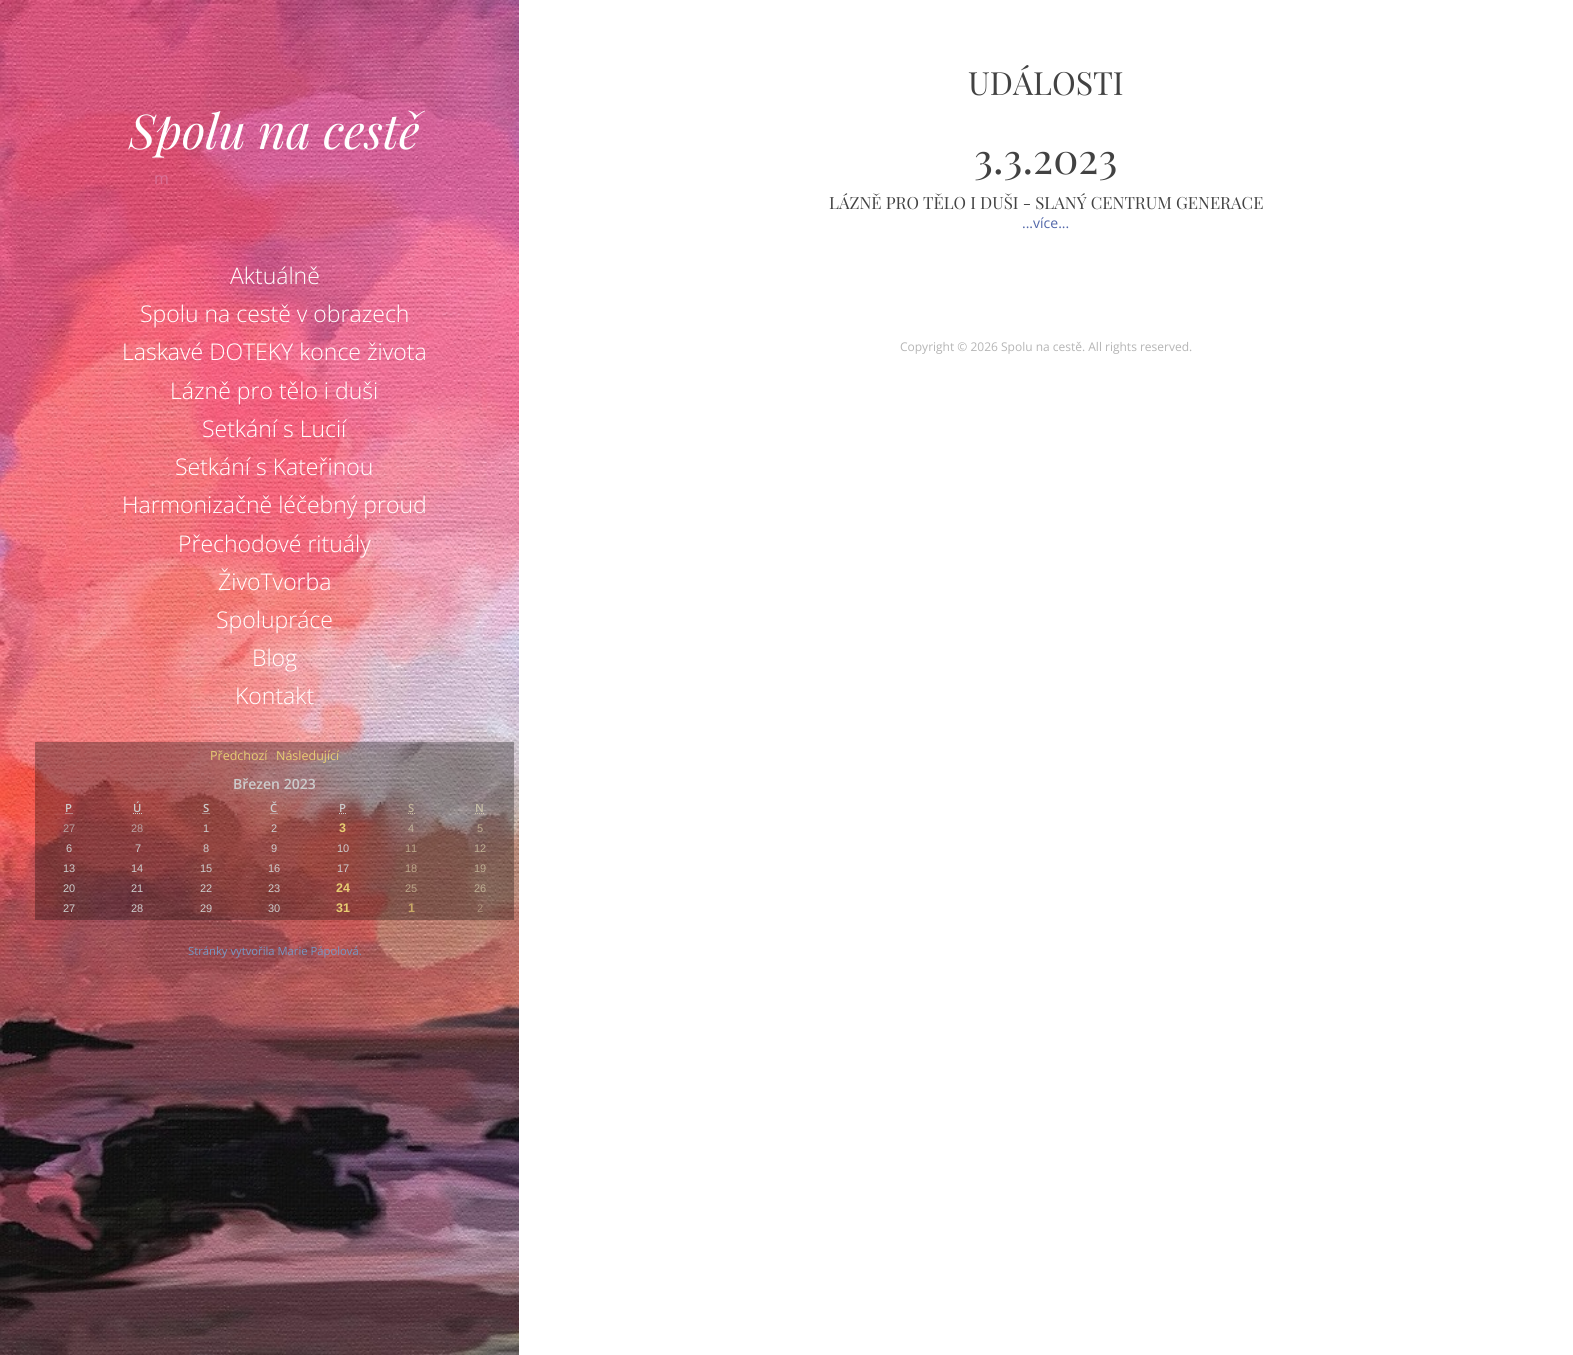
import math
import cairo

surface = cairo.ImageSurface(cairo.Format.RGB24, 1573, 1355)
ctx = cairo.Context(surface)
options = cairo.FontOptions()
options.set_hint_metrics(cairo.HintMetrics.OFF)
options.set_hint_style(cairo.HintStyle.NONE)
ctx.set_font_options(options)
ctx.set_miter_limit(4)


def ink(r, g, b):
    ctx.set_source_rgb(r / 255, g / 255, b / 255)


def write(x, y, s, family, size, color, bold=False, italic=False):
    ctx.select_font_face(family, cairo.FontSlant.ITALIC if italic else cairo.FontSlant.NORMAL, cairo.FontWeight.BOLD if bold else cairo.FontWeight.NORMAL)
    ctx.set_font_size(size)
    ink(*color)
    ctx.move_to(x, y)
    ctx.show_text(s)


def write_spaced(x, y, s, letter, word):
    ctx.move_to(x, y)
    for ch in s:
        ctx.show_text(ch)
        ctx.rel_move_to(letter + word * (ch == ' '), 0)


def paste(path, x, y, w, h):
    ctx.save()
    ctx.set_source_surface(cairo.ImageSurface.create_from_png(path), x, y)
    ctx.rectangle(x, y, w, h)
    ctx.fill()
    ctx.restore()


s1 = dict(family="Playfair Display", size=48, color=(255, 255, 255), italic=True)
s2 = dict(family="Open Sans", size=16, color=(218, 112, 151))
s3 = dict(family="Open Sans Light", size=23, color=(255, 255, 255))
s4 = dict(family="Open Sans", size=12.5, color=(232, 206, 114))
s5 = dict(family="Open Sans SemiBold", size=14, color=(204, 204, 204))
s6 = dict(family="Liberation Sans", size=11, color=(185, 161, 161))
s7 = dict(family="Liberation Sans", size=11, color=(204, 204, 204))
s8 = dict(family="Liberation Sans", size=12.5, color=(232, 206, 114), bold=True)
s9 = dict(family="Liberation Sans", size=11, color=(194, 181, 156))
s10 = dict(family="Liberation Sans", size=11, color=(190, 174, 146))
s11 = dict(family="Liberation Sans", size=11, color=(189, 167, 138))
s12 = dict(family="Liberation Sans", size=12.5, color=(201, 169, 102), bold=True)
s13 = dict(family="Liberation Sans", size=11, color=(173, 147, 123))
s14 = dict(family="Open Sans", size=11.25, color=(117, 153, 197))
s15 = dict(family="Playfair Display", size=32, color=(66, 66, 66))
s16 = dict(family="Playfair Display", size=42, color=(66, 66, 66))
s17 = dict(family="Playfair Display", size=16.8, color=(66, 66, 66))
s18 = dict(family="Open Sans", size=14, color=(81, 102, 169))
s19 = dict(family="Open Sans", size=12, color=(181, 181, 181))

ink(255, 255, 255)
ctx.paint()
paste("pic1.png", 0, 0, 519, 1355)
write(129, 149, "Spolu na cestě", **s1)
write(154, 184, "m", **s2)
write(230, 284, "Aktuálně", **s3)
write(140, 322, "Spolu na cestě v obrazech", **s3)
write(122, 360, "Laskavé DOTEKY konce života", **s3)
write(170, 399, "Lázně pro tělo i duši", **s3)
write(202, 437, "Setkání s Lucií", **s3)
write(175, 475, "Setkání s Kateřinou", **s3)
write(122, 513, "Harmonizačně léčebný proud", **s3)
write(178, 552, "Přechodové rituály", **s3)
write(218, 590, "ŽivoTvorba", **s3)
write(216, 628, "Spolupráce", **s3)
write(252, 666, "Blog", **s3)
write(235, 704, "Kontakt", **s3)
ctx.set_source_rgba(0, 0, 0, 0.3)
ctx.rectangle(35, 742, 479, 178)
ctx.fill()
write(210, 760, "Předchozí", **s4)
write(276, 760, "Následující", **s4)
write(233, 789, "Březen 2023", **s5)
ctx.set_font_size(11.25)
write_spaced(65, 812, "P", 1, 0)
ctx.new_path()
ctx.move_to(65.5, 813.5)
ctx.line_to(73, 813.5)
ctx.set_line_width(1)
ctx.set_dash([1, 1])
ctx.stroke()
write_spaced(133, 812, "Ú", 1, 0)
ctx.new_path()
ctx.move_to(133, 813.5)
ctx.line_to(142.5, 813.5)
ctx.stroke()
write_spaced(203, 812, "S", 1, 0)
ctx.new_path()
ctx.move_to(202.5, 813.5)
ctx.line_to(209.5, 813.5)
ctx.stroke()
write_spaced(270, 812, "Č", 1, 0)
ctx.new_path()
ctx.move_to(270.5, 813.5)
ctx.line_to(278.5, 813.5)
ctx.stroke()
write_spaced(339, 812, "P", 1, 0)
ctx.new_path()
ctx.move_to(339, 813.5)
ctx.line_to(347, 813.5)
ctx.stroke()
ink(194, 181, 156)
write_spaced(408, 812, "S", 1, 0)
ctx.new_path()
ctx.move_to(408, 813.5)
ctx.line_to(415, 813.5)
ctx.set_source_rgba(1, 0.98, 0.784, 0.5)
ctx.stroke()
ink(199, 191, 167)
write_spaced(475, 812, "N", 1, 0)
ctx.new_path()
ctx.move_to(475, 813.5)
ctx.line_to(484.5, 813.5)
ctx.set_source_rgba(1, 0.98, 0.784, 0.5)
ctx.stroke()
write(63, 832, "27", **s6)
write(131, 832, "28", **s6)
write(203, 832, "1", **s7)
write(271, 832, "2", **s7)
write(339, 832, "3", **s8)
write(408, 832, "4", **s9)
write(477, 832, "5", **s10)
write(66, 852, "6", **s7)
write(135, 852, "7", **s7)
write(203, 852, "8", **s7)
write(271, 852, "9", **s7)
write(337, 852, "10", **s7)
write(405, 852, "11", **s11)
write(474, 852, "12", **s10)
write(63, 872, "13", **s7)
write(131, 872, "14", **s7)
write(200, 872, "15", **s7)
write(268, 872, "16", **s7)
write(337, 872, "17", **s7)
write(405, 872, "18", **s11)
write(474, 872, "19", **s10)
write(63, 892, "20", **s7)
write(131, 892, "21", **s7)
write(200, 892, "22", **s7)
write(268, 892, "23", **s7)
write(336, 892, "24", **s8)
write(405, 892, "25", **s11)
write(474, 892, "26", **s10)
write(63, 912, "27", **s7)
write(131, 912, "28", **s7)
write(200, 912, "29", **s7)
write(268, 912, "30", **s7)
write(336, 912, "31", **s8)
write(408, 912, "1", **s12)
write(477, 912, "2", **s13)
write(188, 955, "Stránky vytvořila Marie Pápolová.", **s14)
write(968, 95, "UDÁLOSTI", **s15)
write(974, 174, "3.3.2023", **s16)
write(829, 209, "LÁZNĚ PRO TĚLO I DUŠI - SLANÝ CENTRUM GENERACE", **s17)
write(1022, 228, "...více...", **s18)
write(900, 351, "Copyright © 2026 Spolu na cestě. All rights reserved.", **s19)
surface.write_to_png("screenshot.png")
